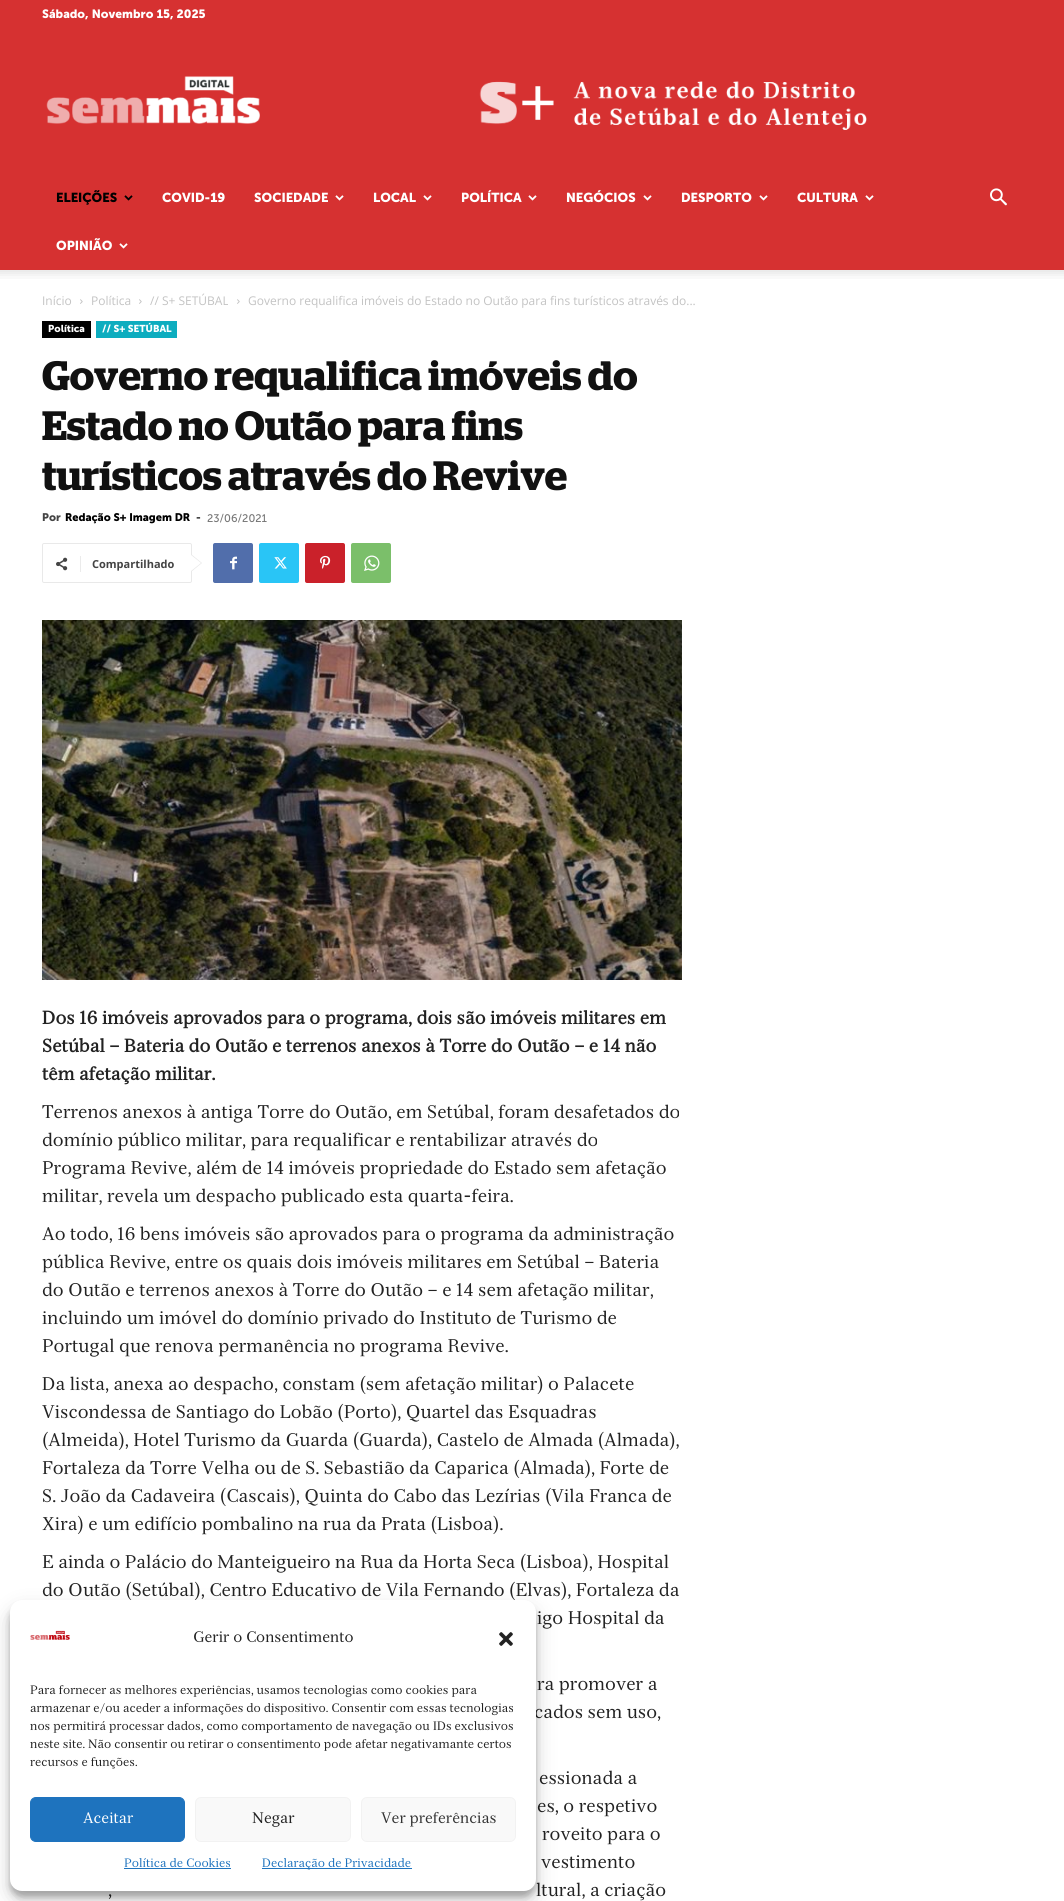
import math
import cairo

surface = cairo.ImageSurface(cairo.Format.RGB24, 1064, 1901)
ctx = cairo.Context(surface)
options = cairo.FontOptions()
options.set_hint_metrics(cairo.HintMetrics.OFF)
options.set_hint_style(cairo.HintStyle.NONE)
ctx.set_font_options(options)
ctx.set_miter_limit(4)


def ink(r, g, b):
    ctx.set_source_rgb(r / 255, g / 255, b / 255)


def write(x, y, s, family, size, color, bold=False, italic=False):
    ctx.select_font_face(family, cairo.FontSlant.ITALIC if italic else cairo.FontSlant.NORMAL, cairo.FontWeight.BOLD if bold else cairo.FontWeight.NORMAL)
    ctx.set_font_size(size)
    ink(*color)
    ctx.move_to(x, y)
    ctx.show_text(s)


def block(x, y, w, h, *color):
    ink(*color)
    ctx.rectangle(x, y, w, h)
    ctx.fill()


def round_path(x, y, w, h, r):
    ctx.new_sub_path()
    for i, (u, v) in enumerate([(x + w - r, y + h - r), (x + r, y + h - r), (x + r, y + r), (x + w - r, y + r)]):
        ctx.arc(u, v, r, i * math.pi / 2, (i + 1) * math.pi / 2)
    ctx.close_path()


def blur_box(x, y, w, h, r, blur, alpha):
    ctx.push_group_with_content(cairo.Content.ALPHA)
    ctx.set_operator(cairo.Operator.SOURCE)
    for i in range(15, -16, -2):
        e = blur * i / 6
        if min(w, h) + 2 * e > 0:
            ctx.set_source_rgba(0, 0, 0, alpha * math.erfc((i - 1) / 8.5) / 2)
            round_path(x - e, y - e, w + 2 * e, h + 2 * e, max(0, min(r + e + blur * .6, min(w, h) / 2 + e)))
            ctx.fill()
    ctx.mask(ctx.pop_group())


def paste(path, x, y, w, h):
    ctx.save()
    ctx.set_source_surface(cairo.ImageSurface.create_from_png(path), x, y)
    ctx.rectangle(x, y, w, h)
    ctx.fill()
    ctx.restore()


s1 = dict(family="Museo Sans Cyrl", size=12, color=(255, 255, 255), bold=True)
s2 = dict(family="Museo Sans Cyrl", size=13, color=(0, 0, 0), bold=True)
s3 = dict(family="Museo Sans Cyrl", size=13, color=(255, 255, 255), bold=True)
s4 = dict(family="Open Sans", size=12, color=(195, 195, 195))
s5 = dict(family="Museo Sans Cyrl", size=10, color=(255, 255, 255), bold=True)
s6 = dict(family="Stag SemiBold", size=41, color=(17, 17, 17))
s7 = dict(family="Museo Sans Cyrl", size=11, color=(68, 68, 68), bold=True)
s8 = dict(family="Museo Sans Cyrl", size=11, color=(0, 0, 0), bold=True)
s9 = dict(family="Museo Sans Cyrl", size=11, color=(118, 118, 118))
s10 = dict(family="Open Sans", size=11, color=(68, 68, 68), bold=True)
s11 = dict(family="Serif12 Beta", size=18, color=(34, 34, 34), bold=True)
s12 = dict(family="Serif12 Beta", size=18, color=(34, 34, 34))
s13 = dict(family="Serif12 Beta", size=15, color=(34, 34, 34))
s14 = dict(family="Serif12 Beta", size=12, color=(34, 34, 34))
s15 = dict(family="Serif12 Beta", size=15, color=(255, 255, 255))
s16 = dict(family="Serif12 Beta", size=15, color=(51, 51, 51))
s17 = dict(family="Serif12 Beta", size=12, color=(30, 115, 190))

ink(255, 255, 255)
ctx.paint()
block(0, 0, 1064, 270, 214, 49, 49)
paste("pic1.png", 46, 76, 214, 48)
paste("pic2.png", 479, 81, 388, 49)
write(42, 18, "Sábado, Novembro 15, 2025", **s1)
write(56, 202, "ELEIÇÕES", **s2)
paste("pic3.png", 124, 195, 9, 6)
write(162, 202, "COVID-19", **s3)
write(254, 202, "SOCIEDADE", **s3)
paste("pic4.png", 335, 195, 9, 6)
write(373, 202, "LOCAL", **s3)
paste("pic4.png", 423, 195, 9, 6)
write(461, 202, "POLÍTICA", **s3)
paste("pic4.png", 528, 195, 9, 6)
write(566, 202, "NEGÓCIOS", **s3)
paste("pic4.png", 643, 195, 9, 6)
write(681, 202, "DESPORTO", **s3)
paste("pic4.png", 759, 195, 9, 6)
write(797, 202, "CULTURA", **s3)
paste("pic4.png", 865, 195, 9, 6)
write(56, 250, "OPINIÃO", **s3)
paste("pic4.png", 119, 243, 9, 6)
paste("pic5.png", 990, 188, 17, 18)
paste("pic6.png", 0, 270, 1064, 9)
write(42, 305, "Início", **s4)
paste("pic7.png", 80, 299, 3, 5)
write(91, 305, "Política", **s4)
paste("pic7.png", 139, 299, 3, 5)
write(150, 305, "// S+ SETÚBAL", **s4)
paste("pic7.png", 237, 299, 3, 5)
write(248, 305, "Governo requalifica imóveis do Estado no Outão para fins turísticos através do...", **s4)
block(42, 321, 49, 17, 0, 0, 0)
write(48, 332, "Política", **s5)
block(96, 321, 81, 17, 13, 173, 191)
write(102, 332, "// S+ SETÚBAL", **s5)
write(42, 390, "Governo requalifica imóveis do", **s6)
write(42, 440, "Estado no Outão para fins", **s6)
write(42, 490, "turísticos através do Revive", **s6)
write(42, 521, "Por", **s7)
write(65, 521, "Redação S+ Imagem DR", **s8)
write(196, 521, "-", **s7)
write(207, 522, "23/06/2021", **s9)
round_path(42.5, 543.5, 149, 39, 1.5)
ink(233, 233, 233)
ctx.set_line_width(1)
ctx.stroke()
ctx.new_path()
ctx.move_to(191, 572)
ctx.line_to(191, 554)
ctx.line_to(202, 563)
ctx.close_path()
ctx.fill()
paste("pic8.png", 56, 557, 12, 14)
block(80, 556, 1, 16, 235, 235, 235)
write(92, 568, "Compartilhado", **s10)
ink(255, 255, 255)
ctx.new_path()
ctx.move_to(191, 571)
ctx.line_to(191, 555)
ctx.line_to(201, 563)
ctx.close_path()
ctx.fill()
ink(81, 110, 171)
round_path(213, 543, 40, 40, 2)
ctx.fill()
paste("pic9.png", 230, 556, 7, 14)
ink(41, 197, 246)
round_path(259, 543, 40, 40, 2)
ctx.fill()
paste("pic10.png", 274, 557, 13, 12)
ink(202, 33, 42)
round_path(305, 543, 40, 40, 2)
ctx.fill()
paste("pic11.png", 320, 555, 11, 14)
ink(123, 191, 106)
round_path(351, 543, 40, 40, 2)
ctx.fill()
paste("pic12.png", 364, 555, 16, 16)
paste("pic13.png", 42, 620, 640, 360)
write(42, 1024, "Dos 16 imóveis aprovados para o programa, dois são imóveis militares em", **s11)
write(42, 1052, "Setúbal – Bateria do Outão e terrenos anexos à Torre do Outão – e 14 não", **s11)
write(42, 1080, "têm afetação militar.", **s11)
write(42, 1118, "Terrenos anexos à antiga Torre do Outão, em Setúbal, foram desafetados do", **s12)
write(42, 1146, "domínio público militar, para requalificar e rentabilizar através do", **s12)
write(42, 1174, "Programa Revive, além de 14 imóveis propriedade do Estado sem afetação", **s12)
write(42, 1202, "militar, revela um despacho publicado esta quarta-feira.", **s12)
write(42, 1240, "Ao todo, 16 bens imóveis são aprovados para o programa da administração", **s12)
write(42, 1268, "pública Revive, entre os quais dois imóveis militares em Setúbal – Bateria", **s12)
write(42, 1296, "do Outão e terrenos anexos à Torre do Outão – e 14 sem afetação militar,", **s12)
write(42, 1324, "incluindo um imóvel do domínio privado do Instituto de Turismo de", **s12)
write(42, 1352, "Portugal que renova permanência no programa Revive.", **s12)
write(42, 1390, "Da lista, anexa ao despacho, constam (sem afetação militar) o Palacete", **s12)
write(42, 1418, "Viscondessa de Santiago do Lobão (Porto), Quartel das Esquadras", **s12)
write(42, 1446, "(Almeida), Hotel Turismo da Guarda (Guarda), Castelo de Almada (Almada),", **s12)
write(42, 1474, "Fortaleza da Torre Velha ou de S. Sebastião da Caparica (Almada), Forte de", **s12)
write(42, 1502, "S. João da Cadaveira (Cascais), Quinta do Cabo das Lezírias (Vila Franca de", **s12)
write(42, 1530, "Xira) e um edifício pombalino na rua da Prata (Lisboa).", **s12)
write(42, 1568, "E ainda o Palácio do Manteigueiro na Rua da Horta Seca (Lisboa), Hospital", **s12)
write(42, 1596, "do Outão (Setúbal), Centro Educativo de Vila Fernando (Elvas), Fortaleza da", **s12)
write(537, 1624, "igo Hospital da", **s12)
write(537, 1690, "ra promover a", **s12)
write(534, 1718, "cados sem uso,", **s12)
write(539, 1784, "essionada a", **s12)
write(537, 1812, "es, o respetivo", **s12)
write(542, 1840, "roveito para o", **s12)
write(541, 1868, "vestimento", **s12)
write(108, 1896, ",", **s12)
write(536, 1896, "ltural, a criação", **s12)
ink(0, 0, 0)
blur_box(10, 1606, 526, 291, 12, 3, 0.23)
blur_box(10, 1610, 526, 291, 12, 10, 0.19)
ink(255, 255, 255)
round_path(10, 1600, 526, 291, 12)
ctx.fill()
paste("pic14.png", 30, 1630, 40, 10)
write(193, 1642, "Gerir o Consentimento", **s13)
paste("pic15.png", 499, 1632, 14, 14)
write(30, 1694, "Para fornecer as melhores experiências, usamos tecnologias como cookies para", **s14)
write(30, 1712, "armazenar e/ou aceder a informações do dispositivo. Consentir com essas tecnologias", **s14)
write(30, 1730, "nos permitirá processar dados, como comportamento de navegação ou IDs exclusivos", **s14)
write(30, 1748, "neste site. Não consentir ou retirar o consentimento pode afetar negativamante certos", **s14)
write(30, 1766, "recursos e funções.", **s14)
ink(30, 115, 190)
round_path(30.5, 1797.5, 154, 44, 5.5)
ctx.fill_preserve()
ctx.stroke()
write(83, 1823, "Aceitar", **s15)
ink(249, 249, 249)
round_path(195.5, 1797.5, 155, 44, 5.5)
ctx.fill_preserve()
ink(242, 242, 242)
ctx.stroke()
write(252, 1823, "Negar", **s13)
ink(249, 249, 249)
round_path(361.5, 1797.5, 154, 44, 5.5)
ctx.fill_preserve()
ink(242, 242, 242)
ctx.stroke()
write(381, 1823, "Ver preferências", **s16)
write(124, 1867, "Política de Cookies", **s17)
block(124, 1868, 107, 1, 30, 115, 190)
block(262, 1868, 150, 1, 30, 115, 190)
write(262, 1867, "Declaração de Privacidade", **s17)
surface.write_to_png("screenshot.png")
